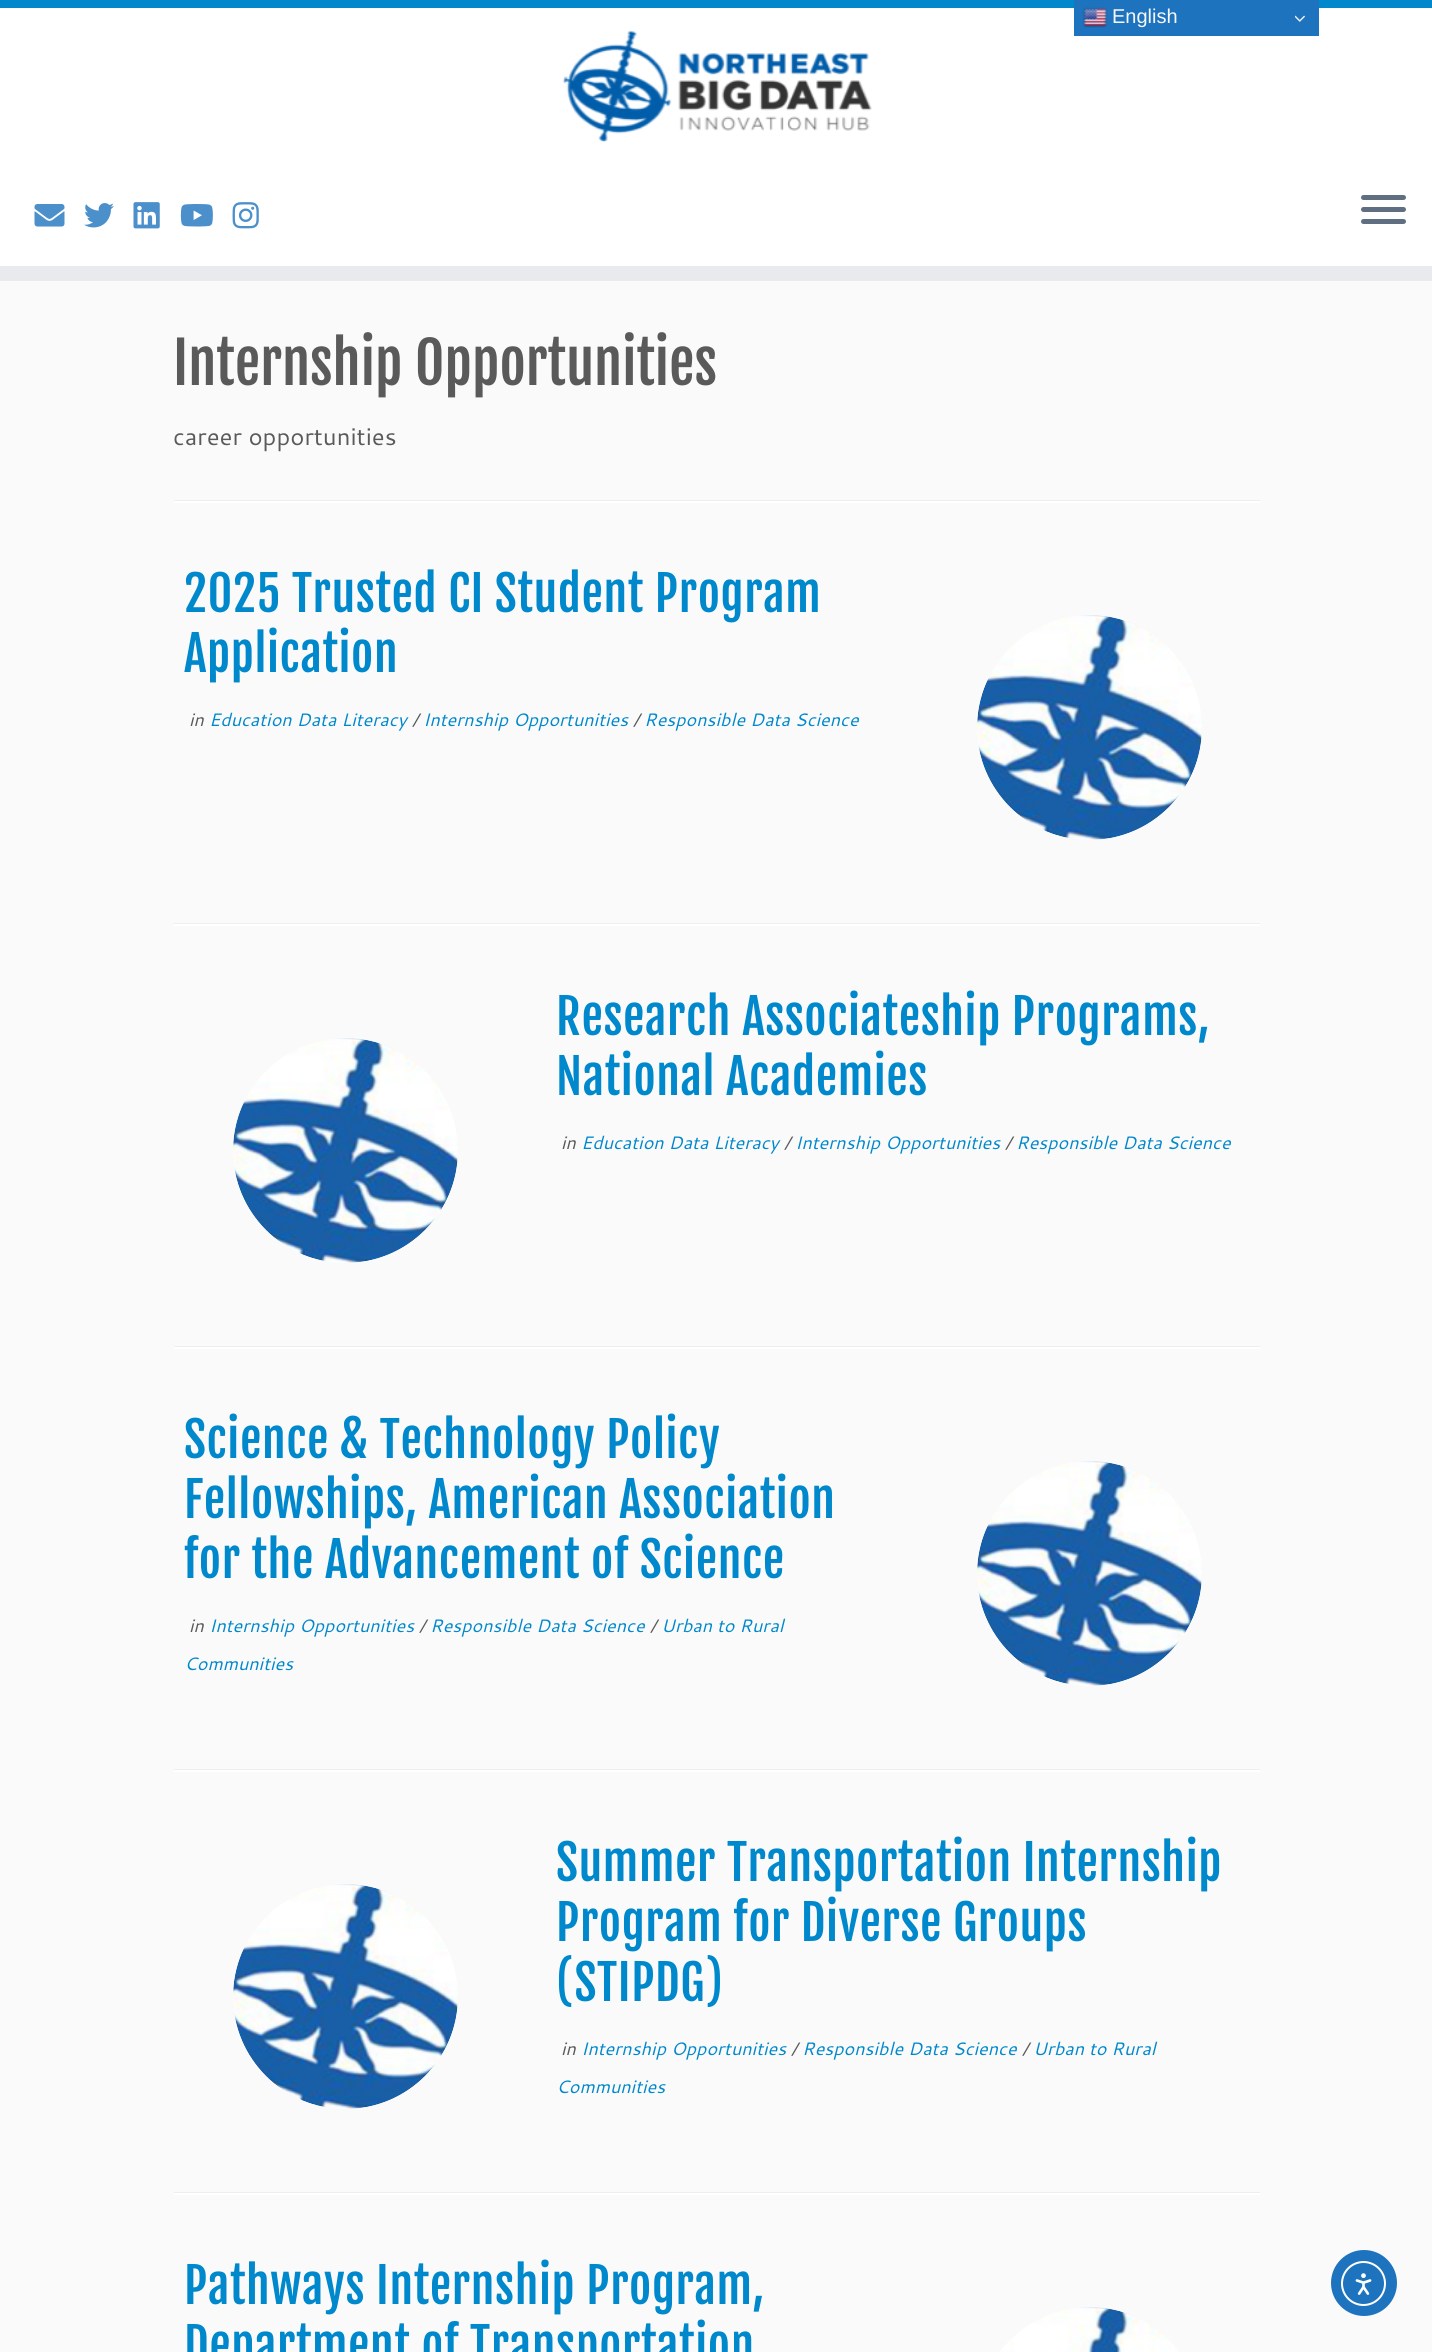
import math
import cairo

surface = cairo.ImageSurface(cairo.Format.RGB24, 1432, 2352)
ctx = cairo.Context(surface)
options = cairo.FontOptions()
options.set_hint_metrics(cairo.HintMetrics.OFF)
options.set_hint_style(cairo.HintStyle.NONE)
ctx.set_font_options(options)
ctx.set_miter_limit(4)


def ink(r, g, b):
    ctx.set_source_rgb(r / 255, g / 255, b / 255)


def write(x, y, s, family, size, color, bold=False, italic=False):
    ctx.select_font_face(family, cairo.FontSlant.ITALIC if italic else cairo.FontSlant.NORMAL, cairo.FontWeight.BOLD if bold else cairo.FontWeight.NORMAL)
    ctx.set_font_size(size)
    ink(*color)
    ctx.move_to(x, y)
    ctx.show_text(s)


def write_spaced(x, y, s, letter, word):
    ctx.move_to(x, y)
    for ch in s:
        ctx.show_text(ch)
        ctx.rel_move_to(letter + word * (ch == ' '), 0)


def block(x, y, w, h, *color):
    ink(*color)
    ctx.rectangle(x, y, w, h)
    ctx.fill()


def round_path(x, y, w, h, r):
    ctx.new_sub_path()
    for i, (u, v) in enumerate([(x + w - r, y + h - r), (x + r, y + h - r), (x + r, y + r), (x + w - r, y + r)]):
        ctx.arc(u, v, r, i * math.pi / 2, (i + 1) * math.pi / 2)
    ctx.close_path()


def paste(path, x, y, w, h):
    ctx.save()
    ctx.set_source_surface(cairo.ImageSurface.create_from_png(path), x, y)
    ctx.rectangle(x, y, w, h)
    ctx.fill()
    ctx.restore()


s1 = dict(family="Liberation Sans", size=20, color=(247, 247, 247))
s2 = dict(family="Fjalla One", size=57, color=(90, 90, 90))
s3 = dict(family="Cantarell", size=24, color=(90, 90, 90))
s4 = dict(family="Cantarell", size=18, color=(90, 90, 90), italic=True)
s5 = dict(family="Cantarell", size=18, color=(0, 136, 204), italic=True)

ink(250, 250, 250)
ctx.paint()
block(0, 8, 1432, 258, 255, 255, 255)
block(0, 0, 1432, 8, 0, 136, 204)
block(1074, 0, 245, 36, 30, 115, 190)
paste("pic1.png", 1082, 7, 26, 21)
write(1112, 23, "English", **s1)
paste("pic2.png", 1295, 15, 10, 7)
block(0, 266, 1432, 15, 233, 234, 238)
paste("pic3.png", 562, 30, 310, 112)
paste("pic4.png", 34, 204, 31, 23)
paste("pic5.png", 84, 203, 30, 25)
paste("pic6.png", 133, 202, 27, 27)
paste("pic7.png", 180, 204, 33, 23)
paste("pic8.png", 232, 202, 27, 27)
ink(95, 111, 129)
round_path(1361, 195, 45, 5, 2.5)
ctx.fill()
round_path(1361, 207, 45, 5, 2.5)
ctx.fill()
round_path(1361, 219, 45, 5, 2.5)
ctx.fill()
write(173, 385, "Internship Opportunities", **s2)
write(173, 445, "career opportunities", **s3)
block(174, 500, 1086, 1, 238, 238, 238)
block(174, 501, 1086, 2, 255, 255, 255)
ctx.select_font_face("Fjalla One")
ctx.set_font_size(48)
ink(0, 136, 204)
write_spaced(184, 612, "2025 Trusted CI Student Program", 0.6, 0)
write_spaced(184, 672, "Application", 0.6, 0)
write(189, 726, "in", **s4)
write(209, 726, "Education Data Literacy", **s5)
write(412, 726, "/", **s4)
write(423, 726, "Internship Opportunities", **s5)
write(633, 726, "/", **s4)
write(644, 726, "Responsible Data Science", **s5)
paste("pic9.png", 977, 615, 225, 225)
block(174, 923, 1086, 1, 238, 238, 238)
block(174, 924, 1086, 2, 255, 255, 255)
ctx.save()
ctx.rectangle(936, 548, 302, 375)
ctx.clip()
ctx.arc(1089.5, 727.5, 183, 0, 2 * math.pi)
ink(250, 250, 250)
ctx.set_line_width(141)
ctx.stroke()
ctx.arc(1089.5, 727.5, 183, 0, 2 * math.pi)
ctx.stroke()
ctx.restore()
paste("pic9.png", 233, 1038, 225, 225)
ctx.select_font_face("Fjalla One")
ctx.set_font_size(48)
ink(0, 136, 204)
write_spaced(556, 1035, "Research Associateship Programs,", 0.6, 0)
write_spaced(556, 1095, "National Academies", 0.6, 0)
write(561, 1149, "in", **s4)
write(581, 1149, "Education Data Literacy", **s5)
block(174, 1346, 1086, 1, 238, 238, 238)
block(174, 1347, 1086, 2, 255, 255, 255)
ctx.save()
ctx.rectangle(192, 971, 302, 375)
ctx.clip()
ctx.arc(345.5, 1150.5, 183, 0, 2 * math.pi)
ink(250, 250, 250)
ctx.set_line_width(141)
ctx.stroke()
ctx.arc(345.5, 1150.5, 183, 0, 2 * math.pi)
ctx.stroke()
ctx.restore()
write(784, 1149, "/", **s4)
write(795, 1149, "Internship Opportunities", **s5)
write(1005, 1149, "/", **s4)
write(1016, 1149, "Responsible Data Science", **s5)
ctx.select_font_face("Fjalla One")
ctx.set_font_size(48)
write_spaced(184, 1458, "Science & Technology Policy", 0.6, 0)
write_spaced(184, 1518, "Fellowships, American Association", 0.6, 0)
write_spaced(184, 1578, "for the Advancement of Science", 0.6, 0)
write(189, 1632, "in", **s4)
write(209, 1632, "Internship Opportunities", **s5)
write(419, 1632, "/", **s4)
write(430, 1632, "Responsible Data Science", **s5)
write(650, 1632, "/", **s4)
write(661, 1632, "Urban to Rural", **s5)
write(184, 1670, "Communities", **s5)
paste("pic9.png", 977, 1461, 225, 225)
block(174, 1769, 1086, 1, 238, 238, 238)
block(174, 1770, 1086, 2, 255, 255, 255)
ctx.save()
ctx.rectangle(936, 1394, 302, 375)
ctx.clip()
ctx.arc(1089.5, 1573.5, 183, 0, 2 * math.pi)
ink(250, 250, 250)
ctx.set_line_width(141)
ctx.stroke()
ctx.arc(1089.5, 1573.5, 183, 0, 2 * math.pi)
ctx.stroke()
ctx.restore()
paste("pic9.png", 233, 1884, 225, 225)
ctx.select_font_face("Fjalla One")
ctx.set_font_size(48)
ink(0, 136, 204)
write_spaced(556, 1881, "Summer Transportation Internship", 0.6, 0)
write_spaced(556, 1941, "Program for Diverse Groups", 0.6, 0)
write_spaced(556, 2001, "(STIPDG)", 0.6, 0)
write(561, 2055, "in", **s4)
write(581, 2055, "Internship Opportunities", **s5)
write(556, 2093, "Communities", **s5)
block(174, 2192, 1086, 1, 238, 238, 238)
block(174, 2193, 1086, 2, 255, 255, 255)
ctx.save()
ctx.rectangle(192, 1817, 302, 375)
ctx.clip()
ctx.arc(345.5, 1996.5, 183, 0, 2 * math.pi)
ink(250, 250, 250)
ctx.set_line_width(141)
ctx.stroke()
ctx.arc(345.5, 1996.5, 183, 0, 2 * math.pi)
ctx.stroke()
ctx.restore()
write(791, 2055, "/", **s4)
write(802, 2055, "Responsible Data Science", **s5)
write(1022, 2055, "/", **s4)
write(1033, 2055, "Urban to Rural", **s5)
ctx.select_font_face("Fjalla One")
ctx.set_font_size(48)
write_spaced(184, 2304, "Pathways Internship Program,", 0.6, 0)
write_spaced(184, 2364, "Department of Transportation", 0.6, 0)
paste("pic10.png", 999, 2307, 181, 45)
ctx.save()
ctx.rectangle(936, 2240, 302, 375)
ctx.clip()
ctx.arc(1089.5, 2419.5, 183, 0, 2 * math.pi)
ink(250, 250, 250)
ctx.set_line_width(141)
ctx.stroke()
ctx.arc(1089.5, 2419.5, 183, 0, 2 * math.pi)
ctx.stroke()
ctx.restore()
ink(30, 115, 190)
ctx.arc(1364, 2283, 33, 0, 2 * math.pi)
ctx.fill()
ctx.arc(1363.5, 2283.5, 21.5, 0, 2 * math.pi)
ink(255, 255, 255)
ctx.stroke()
paste("pic11.png", 1355, 2273, 17, 22)
surface.write_to_png("screenshot.png")
